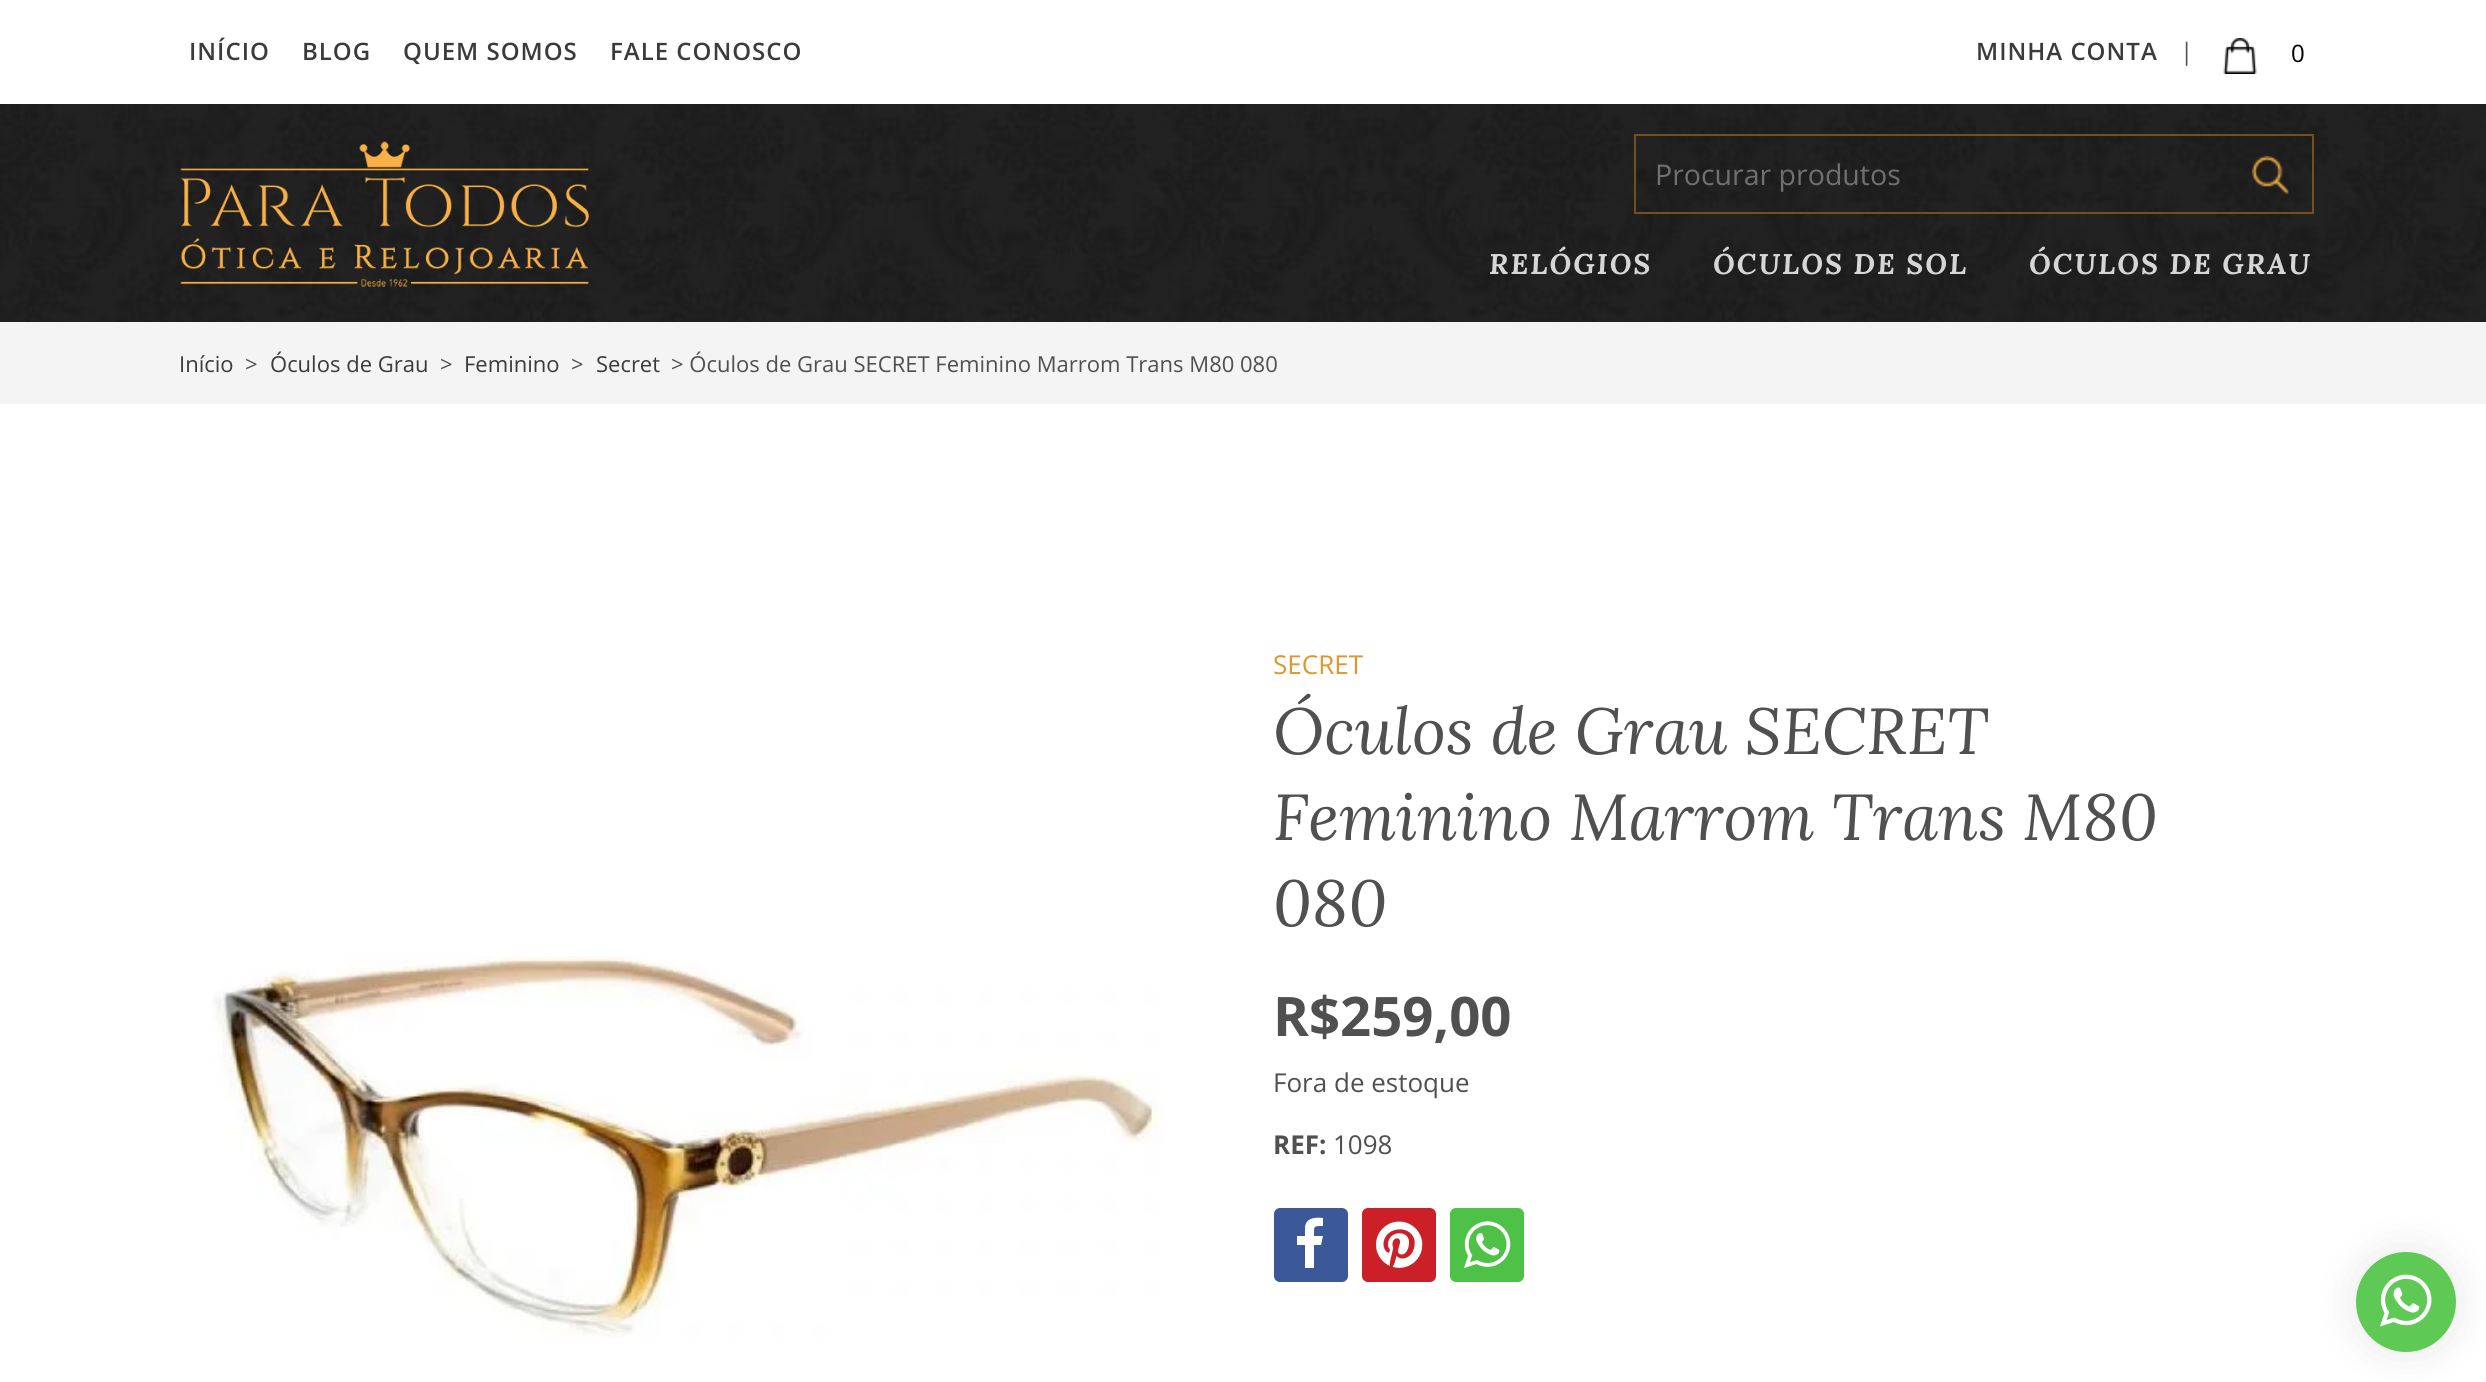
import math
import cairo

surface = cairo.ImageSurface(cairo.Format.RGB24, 2486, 1382)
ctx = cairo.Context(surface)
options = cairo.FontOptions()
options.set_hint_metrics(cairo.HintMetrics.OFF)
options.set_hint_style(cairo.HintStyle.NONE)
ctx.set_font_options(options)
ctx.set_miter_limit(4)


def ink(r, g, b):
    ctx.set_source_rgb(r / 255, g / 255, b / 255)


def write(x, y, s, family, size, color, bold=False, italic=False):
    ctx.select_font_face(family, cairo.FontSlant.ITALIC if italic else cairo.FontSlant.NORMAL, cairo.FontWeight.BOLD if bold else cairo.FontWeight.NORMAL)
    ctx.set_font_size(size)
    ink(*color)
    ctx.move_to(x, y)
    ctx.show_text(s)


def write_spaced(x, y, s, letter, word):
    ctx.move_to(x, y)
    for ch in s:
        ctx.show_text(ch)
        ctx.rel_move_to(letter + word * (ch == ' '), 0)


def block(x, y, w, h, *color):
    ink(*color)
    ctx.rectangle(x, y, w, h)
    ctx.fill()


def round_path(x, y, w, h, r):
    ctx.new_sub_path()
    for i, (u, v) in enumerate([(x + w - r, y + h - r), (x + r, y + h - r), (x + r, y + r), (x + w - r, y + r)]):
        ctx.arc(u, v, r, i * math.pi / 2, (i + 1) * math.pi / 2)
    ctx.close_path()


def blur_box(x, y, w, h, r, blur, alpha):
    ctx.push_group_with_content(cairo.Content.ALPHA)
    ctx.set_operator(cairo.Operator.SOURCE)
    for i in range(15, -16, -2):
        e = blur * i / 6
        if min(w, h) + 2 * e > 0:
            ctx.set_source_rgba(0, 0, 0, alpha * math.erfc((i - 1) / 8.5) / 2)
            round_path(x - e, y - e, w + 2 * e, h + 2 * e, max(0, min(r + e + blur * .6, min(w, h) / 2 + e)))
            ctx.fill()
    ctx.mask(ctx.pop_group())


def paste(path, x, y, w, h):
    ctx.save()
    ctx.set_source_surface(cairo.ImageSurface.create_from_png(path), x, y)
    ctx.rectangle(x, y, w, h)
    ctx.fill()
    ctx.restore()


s1 = dict(family="Open Sans", size=24, color=(80, 80, 80))
s2 = dict(family="Open Sans", size=24, color=(0, 0, 0))
s3 = dict(family="Open Sans", size=28.5, color=(112, 112, 112))
s4 = dict(family="Open Sans", size=22, color=(59, 59, 59))
s5 = dict(family="Open Sans", size=22, color=(80, 80, 80))
s6 = dict(family="Open Sans", size=26, color=(224, 150, 43))
s7 = dict(family="Lora", size=65, color=(80, 80, 80), italic=True)
s8 = dict(family="Open Sans", size=54.5, color=(80, 80, 80), bold=True)
s9 = dict(family="Open Sans", size=26, color=(80, 80, 80))
s10 = dict(family="Open Sans", size=26, color=(80, 80, 80), bold=True)

ink(255, 255, 255)
ctx.paint()
paste("pic1.png", 0, 104, 2486, 218)
ctx.select_font_face("Open Sans SemiBold")
ctx.set_font_size(24)
ink(59, 59, 59)
write_spaced(189, 60, "INÍCIO", 1, 0)
write_spaced(302, 60, "BLOG", 1, 0)
write_spaced(403, 60, "QUEM SOMOS", 1, 0)
write_spaced(610, 60, "FALE CONOSCO", 1, 0)
write_spaced(1976, 60, "MINHA CONTA", 1, 0)
write(2180, 60, "|", **s1)
paste("pic2.png", 2223, 38, 34, 36)
write(2291, 62, "0", **s2)
paste("pic3.png", 180, 141, 409, 146)
block(1634, 134, 680, 2, 117, 80, 28)
block(1634, 212, 590, 2, 117, 80, 28)
block(1634, 134, 2, 80, 117, 80, 28)
write(1655, 185, "Procurar produtos", **s3)
paste("pic4.png", 2252, 156, 37, 38)
block(2312, 134, 2, 80, 117, 80, 28)
block(2224, 212, 90, 2, 117, 80, 28)
ctx.select_font_face("Lora", cairo.FontSlant.ITALIC, cairo.FontWeight.BOLD)
ink(214, 214, 214)
write_spaced(1489, 274, "RELÓGIOS", 2, 0)
write_spaced(1713, 274, "ÓCULOS DE SOL", 2, 0)
write_spaced(2029, 274, "ÓCULOS DE GRAU", 2, 0)
block(0, 322, 2486, 82, 244, 244, 244)
write(179, 372, "Início", **s4)
write(245, 372, ">", **s5)
write(270, 372, "Óculos de Grau", **s4)
write(440, 372, ">", **s5)
write(464, 372, "Feminino", **s4)
write(571, 372, ">", **s5)
write(596, 372, "Secret", **s4)
write(671, 372, "> Óculos de Grau SECRET Feminino Marrom Trans M80 080", **s5)
paste("pic5.png", 212, 956, 953, 382)
write(1273, 674, "SECRET", **s6)
write(1273, 754, "Óculos de Grau SECRET", **s7)
write(1273, 840, "Feminino Marrom Trans M80", **s7)
write(1273, 926, "080", **s7)
write(1273, 1036, "R$259,00", **s8)
write(1273, 1092, "Fora de estoque", **s9)
write(1273, 1154, "REF:", **s10)
write(1333, 1154, "1098", **s9)
ink(59, 89, 152)
round_path(1274, 1208, 74, 74, 6)
ctx.fill()
ink(255, 255, 255)
ctx.new_path()
ctx.move_to(1323, 1218)
ctx.line_to(1323, 1226)
ctx.curve_to(1313, 1226, 1314, 1226, 1314, 1236)
ctx.line_to(1323, 1236)
ctx.line_to(1321, 1245)
ctx.line_to(1314, 1245)
ctx.line_to(1314, 1268)
ctx.line_to(1305, 1268)
ctx.line_to(1305, 1245)
ctx.line_to(1297, 1245)
ctx.line_to(1297, 1236)
ctx.line_to(1305, 1236)
ctx.line_to(1305, 1227)
ctx.curve_to(1306, 1218, 1315, 1217, 1323, 1218)
ctx.close_path()
ctx.fill()
ink(203, 32, 39)
round_path(1362, 1208, 74, 74, 6)
ctx.fill()
paste("pic6.png", 1376, 1221, 47, 47)
ink(77, 194, 71)
round_path(1450, 1208, 74, 74, 6)
ctx.fill()
paste("pic7.png", 1464, 1221, 47, 47)
ink(0, 0, 0)
blur_box(2356, 1252, 100, 100, 50, 20, 0.1)
ink(94, 202, 85)
ctx.arc(2406, 1302, 50, 0, 2 * math.pi)
ctx.fill()
paste("pic8.png", 2380, 1274, 52, 53)
surface.write_to_png("screenshot.png")
